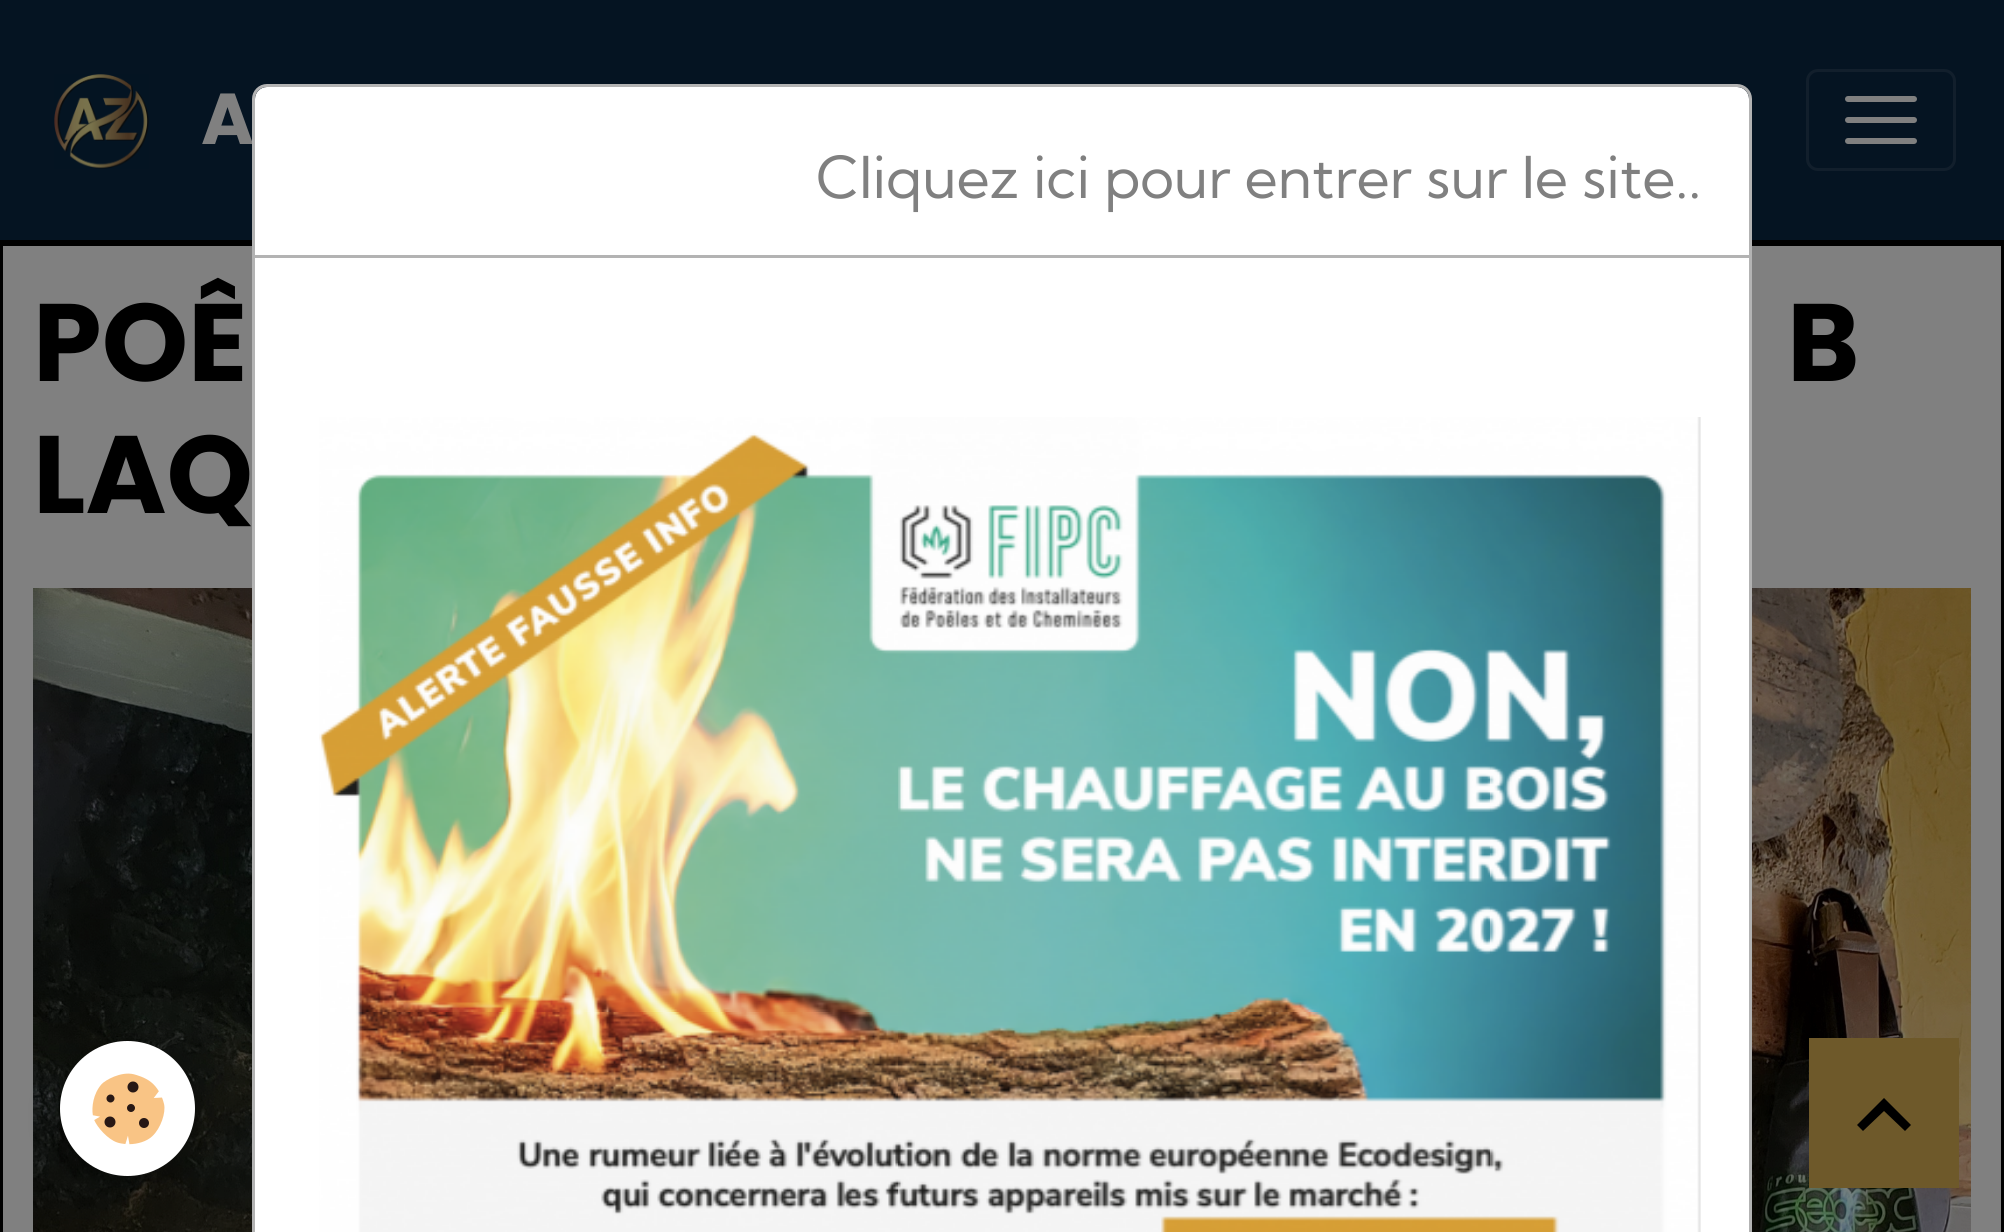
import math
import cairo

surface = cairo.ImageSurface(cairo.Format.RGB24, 2004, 1232)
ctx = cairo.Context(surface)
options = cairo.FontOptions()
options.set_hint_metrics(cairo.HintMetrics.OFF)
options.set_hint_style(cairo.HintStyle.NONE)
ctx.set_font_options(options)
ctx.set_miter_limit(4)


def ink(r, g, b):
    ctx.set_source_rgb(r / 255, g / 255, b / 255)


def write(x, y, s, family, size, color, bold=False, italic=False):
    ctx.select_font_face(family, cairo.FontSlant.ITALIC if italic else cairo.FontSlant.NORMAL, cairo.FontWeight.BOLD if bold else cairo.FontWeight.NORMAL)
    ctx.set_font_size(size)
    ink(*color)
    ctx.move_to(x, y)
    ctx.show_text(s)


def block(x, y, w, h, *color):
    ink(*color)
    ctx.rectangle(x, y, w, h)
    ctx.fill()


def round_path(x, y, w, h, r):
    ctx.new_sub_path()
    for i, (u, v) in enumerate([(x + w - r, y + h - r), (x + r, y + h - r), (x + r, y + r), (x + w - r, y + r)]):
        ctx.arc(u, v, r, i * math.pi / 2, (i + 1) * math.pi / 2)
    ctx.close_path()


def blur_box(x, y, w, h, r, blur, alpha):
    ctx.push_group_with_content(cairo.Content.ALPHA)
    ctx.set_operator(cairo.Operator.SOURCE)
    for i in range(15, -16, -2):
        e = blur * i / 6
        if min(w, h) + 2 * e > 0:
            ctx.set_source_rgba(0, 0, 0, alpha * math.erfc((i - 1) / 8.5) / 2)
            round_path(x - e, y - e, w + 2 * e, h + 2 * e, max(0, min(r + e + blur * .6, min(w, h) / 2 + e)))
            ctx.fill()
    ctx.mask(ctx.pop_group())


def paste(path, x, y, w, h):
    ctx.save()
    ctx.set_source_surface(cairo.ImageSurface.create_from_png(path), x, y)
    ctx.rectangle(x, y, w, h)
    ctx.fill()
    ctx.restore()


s1 = dict(family="Poppins", size=72, color=(128, 128, 128), bold=True)
s2 = dict(family="Kumbh Sans", size=57.6, color=(128, 128, 128))
s3 = dict(family="Poppins", size=110, color=(0, 0, 0), bold=True)

ink(128, 128, 128)
ctx.paint()
block(0, 0, 2004, 240, 5, 20, 34)
block(0, 240, 2004, 3, 0, 0, 0)
paste("pic1.png", 54, 74, 95, 95)
write(201, 144, "A", **s1)
round_path(1807.5, 70.5, 147, 99, 10.5)
ink(18, 31, 44)
ctx.set_line_width(3)
ctx.stroke()
ink(128, 128, 128)
round_path(1845, 96, 72, 6, 3)
ctx.fill()
round_path(1845, 117, 72, 6, 3)
ctx.fill()
round_path(1845, 138, 72, 6, 3)
ctx.fill()
ctx.rectangle(1.5, 244.5, 2001, 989)
ink(0, 0, 0)
ctx.stroke()
paste("pic3.png", 33, 588, 1938, 644)
ink(255, 255, 255)
ctx.new_path()
ctx.move_to(267, 87)
ctx.line_to(1737, 87)
ctx.curve_to(1743.5, 87, 1749, 92.5, 1749, 99)
ctx.line_to(1749, 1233)
ctx.line_to(255, 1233)
ctx.line_to(255, 99)
ctx.curve_to(255, 92.5, 260.5, 87, 267, 87)
ctx.close_path()
ctx.fill()
round_path(253.5, 85.5, 1497, 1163, 13.5)
ink(179, 179, 179)
ctx.stroke()
block(255, 255, 1494, 3, 179, 179, 179)
write(816, 198, "Cliquez ici pour entrer sur le site..", **s2)
paste("pic2.png", 319, 417, 1382, 815)
write(33, 381, "POÊ", **s3)
write(1787, 381, "B", **s3)
write(33, 513, "LAQ", **s3)
ink(0, 0, 0)
blur_box(60, 1050, 135, 135, 67.5, 15, 0.24)
ink(255, 255, 255)
ctx.arc(127.5, 1108.5, 67.5, 0, 2 * math.pi)
ctx.fill()
paste("pic4.png", 92, 1073, 73, 72)
block(1809, 1038, 150, 150, 110, 89, 42)
ink(0, 0, 0)
ctx.new_path()
ctx.move_to(1884, 1098)
ctx.line_to(1911, 1125)
ctx.line_to(1905, 1131)
ctx.line_to(1884, 1111)
ctx.line_to(1863, 1131)
ctx.line_to(1857, 1125)
ctx.close_path()
ctx.fill()
surface.write_to_png("screenshot.png")
